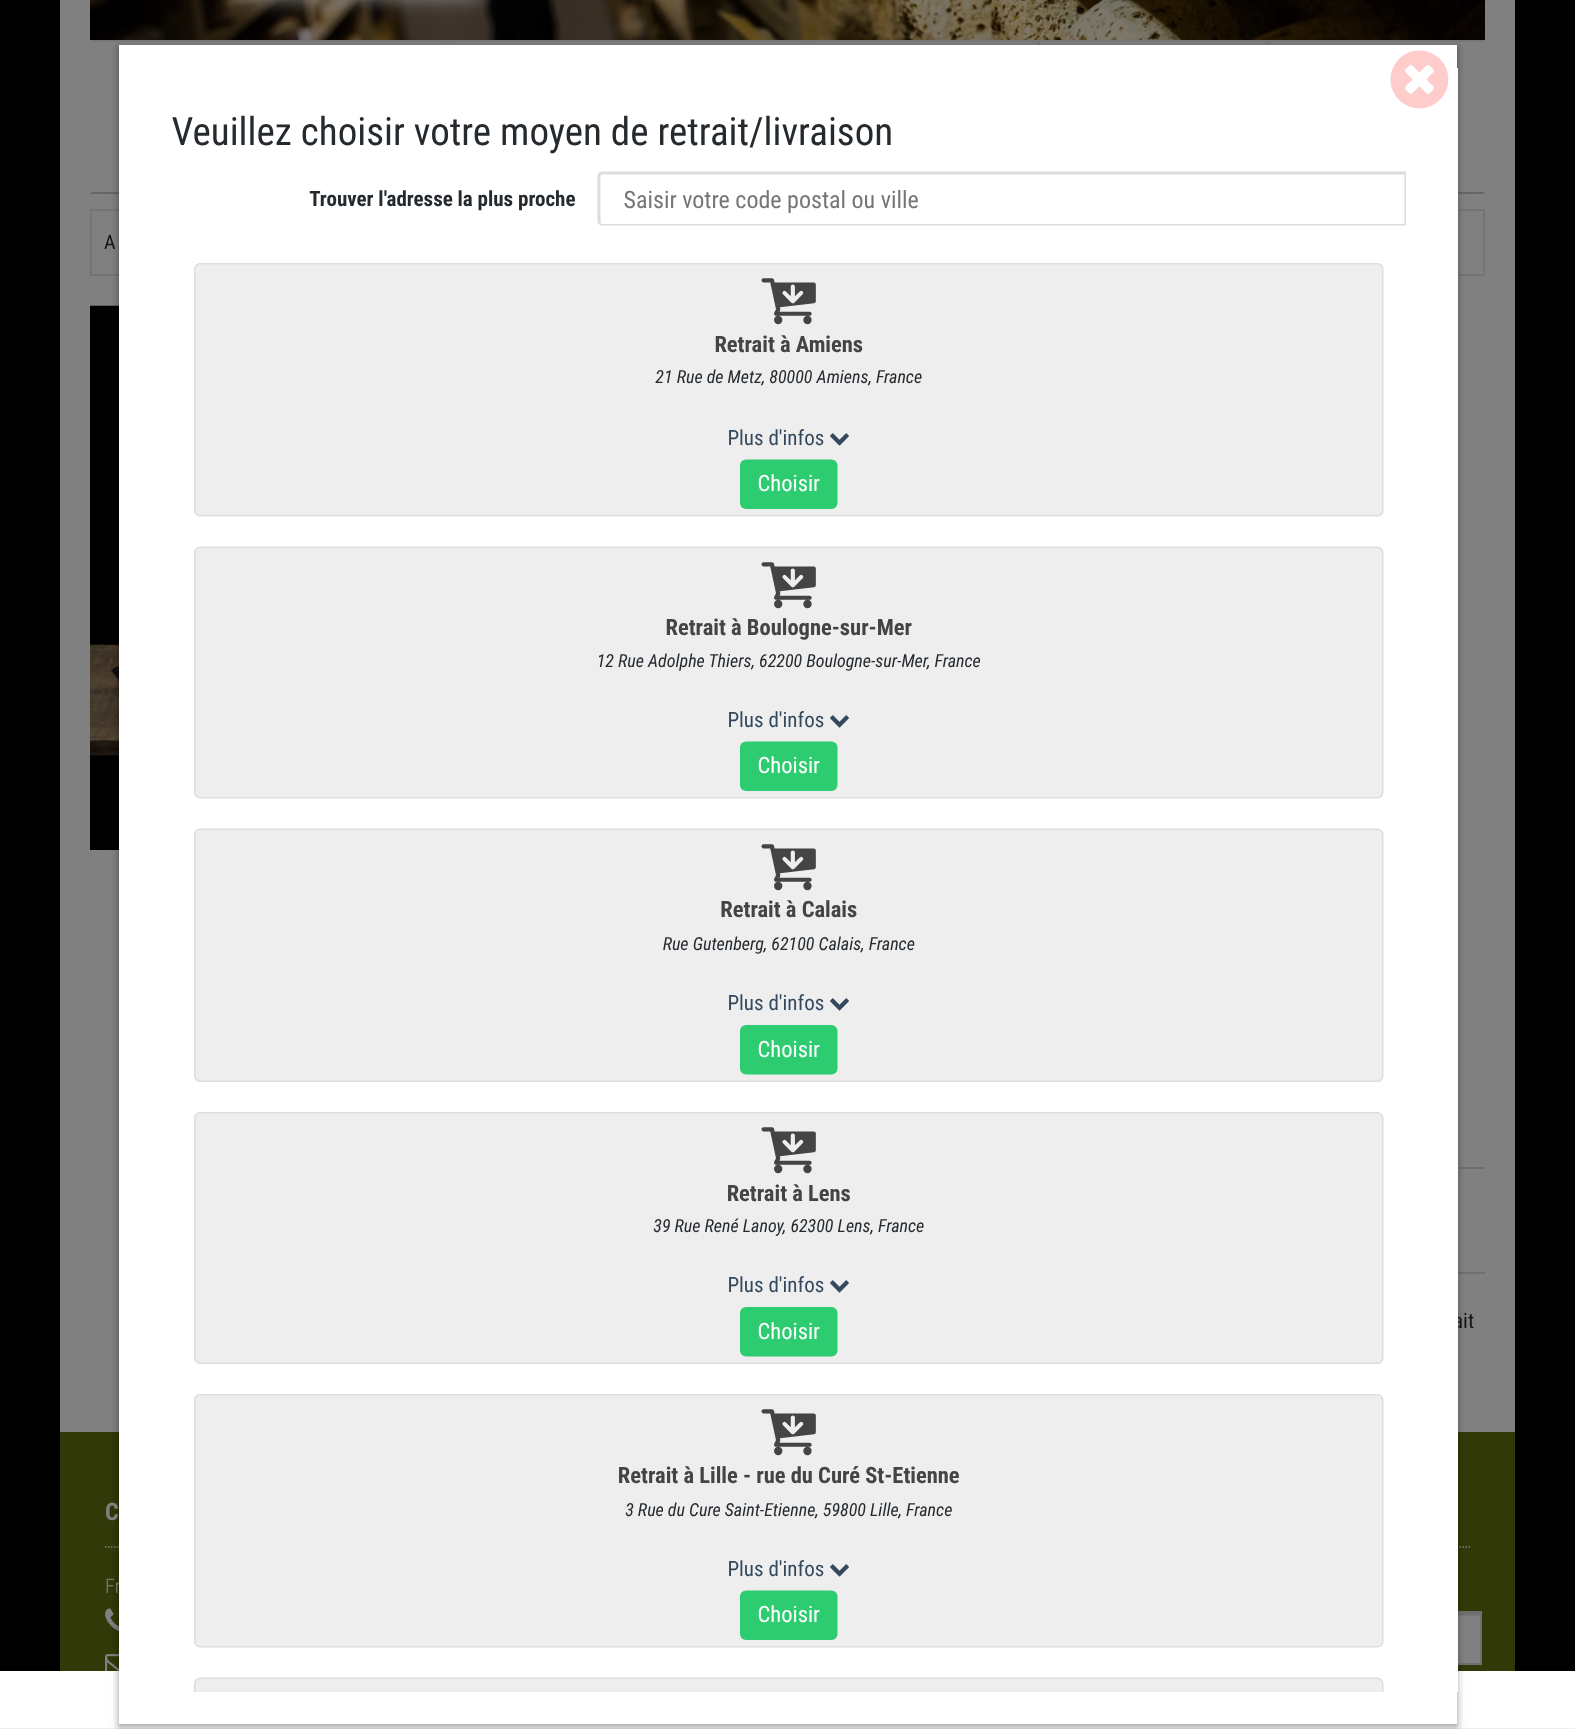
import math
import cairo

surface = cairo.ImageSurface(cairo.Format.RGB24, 1575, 1729)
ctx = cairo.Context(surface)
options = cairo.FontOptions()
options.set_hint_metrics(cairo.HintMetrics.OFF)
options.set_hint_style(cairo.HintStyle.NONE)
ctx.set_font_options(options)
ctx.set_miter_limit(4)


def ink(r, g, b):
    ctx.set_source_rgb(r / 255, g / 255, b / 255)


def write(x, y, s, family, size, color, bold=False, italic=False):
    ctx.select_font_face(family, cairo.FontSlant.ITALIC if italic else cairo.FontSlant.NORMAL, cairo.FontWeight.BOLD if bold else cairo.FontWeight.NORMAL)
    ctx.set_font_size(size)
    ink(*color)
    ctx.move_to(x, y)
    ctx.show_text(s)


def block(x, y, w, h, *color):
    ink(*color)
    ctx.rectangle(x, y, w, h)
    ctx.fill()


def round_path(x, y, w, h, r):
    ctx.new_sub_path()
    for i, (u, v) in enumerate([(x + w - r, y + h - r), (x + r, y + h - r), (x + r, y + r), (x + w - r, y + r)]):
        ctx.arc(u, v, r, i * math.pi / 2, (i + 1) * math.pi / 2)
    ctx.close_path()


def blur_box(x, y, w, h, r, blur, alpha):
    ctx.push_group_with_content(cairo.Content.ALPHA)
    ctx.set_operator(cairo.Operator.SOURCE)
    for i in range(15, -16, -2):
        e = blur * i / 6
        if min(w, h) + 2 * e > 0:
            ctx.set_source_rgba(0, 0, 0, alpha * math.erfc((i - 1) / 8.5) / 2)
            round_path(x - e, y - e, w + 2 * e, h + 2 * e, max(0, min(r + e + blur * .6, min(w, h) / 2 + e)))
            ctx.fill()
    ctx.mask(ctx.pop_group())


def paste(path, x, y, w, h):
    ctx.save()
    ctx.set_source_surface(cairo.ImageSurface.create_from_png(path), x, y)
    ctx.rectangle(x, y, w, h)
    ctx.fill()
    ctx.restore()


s1 = dict(family="Roboto Condensed", size=21, color=(19, 21, 24))
s2 = dict(family="Roboto Condensed Light", size=20, color=(128, 128, 128))
s3 = dict(family="Roboto Condensed", size=20, color=(19, 21, 24))
s4 = dict(family="Roboto Condensed", size=24, color=(128, 128, 128), bold=True)

ink(0, 0, 0)
ctx.paint()
block(60, 0, 1455, 1432, 128, 128, 128)
paste("pic3.png", 90, 0, 1395, 40)
ink(119, 119, 119)
ctx.new_path()
ctx.move_to(90, 40)
ctx.line_to(1485, 40)
ctx.line_to(1484, 42)
ctx.line_to(92, 42)
ctx.close_path()
ctx.fill()
ink(102, 102, 102)
ctx.new_path()
ctx.move_to(1485, 194)
ctx.line_to(90, 194)
ctx.line_to(92, 192)
ctx.line_to(1484, 192)
ctx.close_path()
ctx.fill()
block(447, 42, 2, 3, 119, 119, 119)
block(807, 42, 2, 3, 119, 119, 119)
block(1038, 42, 2, 3, 119, 119, 119)
block(1268, 42, 2, 3, 119, 119, 119)
ctx.rectangle(91, 210, 1393, 65)
ink(116, 116, 116)
ctx.stroke()
paste("pic4.png", 90, 305, 29, 545)
block(1458, 1167, 27, 2, 111, 111, 111)
block(1458, 1272, 27, 2, 111, 111, 111)
block(60, 1432, 1455, 239, 48, 57, 7)
ctx.new_path()
ctx.move_to(105, 1547)
ctx.line_to(412.5, 1547)
ink(128, 128, 128)
ctx.set_line_width(1.5)
ctx.set_dash([1.5, 1.5])
ctx.stroke()
paste("pic5.png", 105, 1608, 14, 23)
paste("pic6.png", 105, 1654, 14, 17)
ctx.new_path()
ctx.move_to(1162.5, 1547)
ctx.line_to(1470, 1547)
ctx.stroke()
ctx.new_path()
ctx.move_to(1144, 1614)
ctx.line_to(1480, 1614)
ctx.line_to(1480, 1664)
ctx.line_to(1144, 1664)
ctx.curve_to(1144, 1664, 1143, 1662, 1143, 1660)
ctx.line_to(1143, 1616)
ctx.curve_to(1143, 1615, 1144, 1614, 1144, 1614)
ctx.close_path()
ctx.fill()
ctx.set_source_rgba(0, 0, 0, 0.07)
ctx.new_path()
ctx.move_to(1144, 1616)
ctx.line_to(1480, 1616)
ctx.line_to(1480, 1664)
ctx.line_to(1480, 1614)
ctx.line_to(1144, 1614)
ctx.curve_to(1143, 1614, 1143, 1616, 1143, 1617)
ctx.close_path()
ctx.fill()
ctx.rectangle(1141, 1612, 340, 52)
ink(111, 111, 111)
ctx.set_line_width(2)
ctx.set_dash([])
ctx.stroke()
block(1458, 1613, 24, 2, 111, 111, 111)
block(0, 1671, 1575, 57, 255, 255, 255)
block(0, 1728, 1575, 1, 238, 238, 238)
ink(0, 0, 0)
blur_box(119, 48, 1338, 1679, 0, 4, 0.4)
write(1453, 1328, "ait", **s1)
write(105, 1593, "Fr", **s2)
block(119, 45, 1338, 1679, 255, 255, 255)
paste("pic2.png", 172, 68, 1286, 1624)
paste("pic1.png", 1390, 50, 59, 59)
write(104, 249, "A", **s3)
write(105, 1520, "C", **s4)
surface.write_to_png("screenshot.png")
